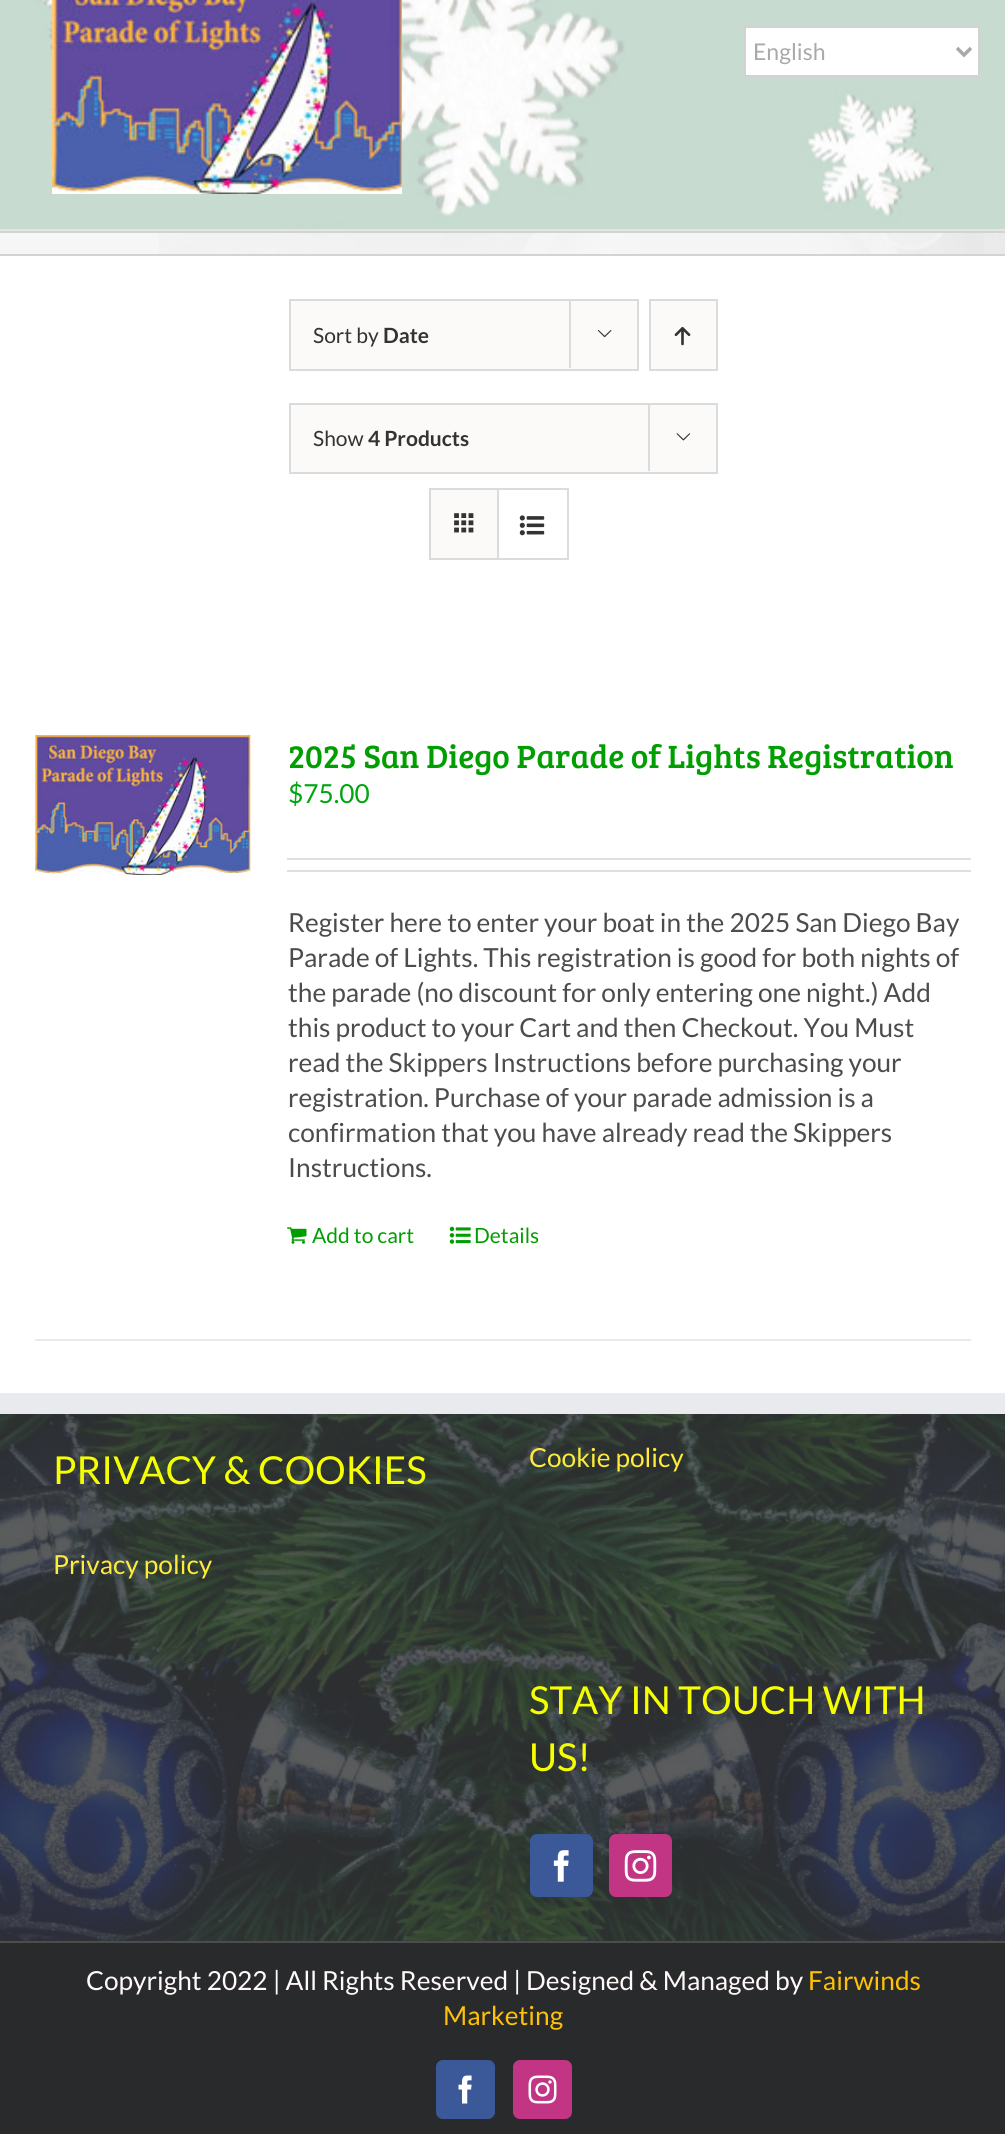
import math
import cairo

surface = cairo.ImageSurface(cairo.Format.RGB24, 1005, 2134)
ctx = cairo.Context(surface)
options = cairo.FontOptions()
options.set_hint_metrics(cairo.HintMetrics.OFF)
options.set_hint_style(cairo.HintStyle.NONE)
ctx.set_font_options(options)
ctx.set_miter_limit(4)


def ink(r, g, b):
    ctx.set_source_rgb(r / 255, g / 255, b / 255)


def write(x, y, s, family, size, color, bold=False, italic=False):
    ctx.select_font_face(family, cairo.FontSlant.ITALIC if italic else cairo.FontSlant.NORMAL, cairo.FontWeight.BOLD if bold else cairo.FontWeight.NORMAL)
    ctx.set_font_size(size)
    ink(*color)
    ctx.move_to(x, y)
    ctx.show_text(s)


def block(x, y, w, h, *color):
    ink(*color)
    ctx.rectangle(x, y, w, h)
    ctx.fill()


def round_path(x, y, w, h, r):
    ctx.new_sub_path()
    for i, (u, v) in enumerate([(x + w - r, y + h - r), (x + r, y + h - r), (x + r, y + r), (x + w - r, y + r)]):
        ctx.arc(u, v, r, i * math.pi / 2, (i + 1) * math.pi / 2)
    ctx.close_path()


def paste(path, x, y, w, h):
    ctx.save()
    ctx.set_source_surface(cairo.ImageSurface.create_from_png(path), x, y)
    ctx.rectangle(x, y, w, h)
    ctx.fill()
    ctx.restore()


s1 = dict(family="Lato", size=23, color=(170, 169, 169))
s2 = dict(family="Lato", size=21, color=(51, 51, 51))
s3 = dict(family="Lato", size=21, color=(51, 51, 51), bold=True)
s4 = dict(family="Bree Serif", size=33.25, color=(0, 158, 0))
s5 = dict(family="Lato", size=26.25, color=(0, 165, 16))
s6 = dict(family="Lato", size=26.25, color=(76, 76, 76))
s7 = dict(family="Lato", size=21, color=(0, 158, 0))
s8 = dict(family="Lato", size=38.5, color=(246, 255, 0))
s9 = dict(family="Lato", size=26.25, color=(255, 235, 59))
s10 = dict(family="Lato", size=26.25, color=(255, 249, 249))
s11 = dict(family="Lato", size=26.25, color=(255, 193, 7))

ink(255, 255, 255)
ctx.paint()
paste("pic1.png", 0, 0, 1005, 229)
ink(255, 255, 255)
ctx.rectangle(745, 27, 234, 49)
ctx.fill_preserve()
ink(210, 210, 210)
ctx.stroke()
ctx.new_path()
ctx.move_to(957, 48)
ctx.line_to(964, 55)
ctx.line_to(971, 48)
ink(170, 169, 169)
ctx.set_line_width(3.5)
ctx.stroke()
write(753, 60, "English", **s1)
block(0, 229, 1005, 2, 229, 229, 229)
paste("pic2.png", 52, 0, 350, 194)
block(0, 233, 1005, 21, 246, 246, 246)
paste("pic3.png", 159, 233, 846, 21)
block(0, 231, 1005, 2, 210, 211, 212)
block(0, 254, 1005, 2, 210, 211, 212)
ink(251, 250, 249)
ctx.rectangle(290, 300, 348, 70)
ctx.fill_preserve()
ink(219, 219, 219)
ctx.set_line_width(2)
ctx.stroke()
write(313, 343, "Sort by", **s2)
write(383, 343, "Date", **s3)
block(569, 299, 2, 69, 219, 219, 219)
paste("pic4.png", 597, 330, 15, 8)
ink(251, 250, 249)
ctx.rectangle(650, 300, 67, 70)
ctx.fill_preserve()
ink(219, 219, 219)
ctx.stroke()
paste("pic5.png", 674, 326, 17, 20)
ink(251, 250, 249)
ctx.rectangle(290, 404, 427, 69)
ctx.fill_preserve()
ink(219, 219, 219)
ctx.stroke()
write(313, 446, "Show", **s2)
write(368, 446, "4 Products", **s3)
block(648, 403, 2, 68, 219, 219, 219)
paste("pic6.png", 676, 433, 15, 8)
ctx.rectangle(430, 489, 138, 70)
ctx.stroke()
block(431, 490, 66, 68, 251, 250, 249)
block(497, 490, 2, 68, 219, 219, 219)
paste("pic7.png", 454, 513, 20, 20)
paste("pic8.png", 519, 515, 26, 21)
block(35, 1339, 936, 2, 235, 234, 234)
paste("pic9.png", 35, 735, 216, 140)
write(288, 768, "2025 San Diego Parade of Lights Registration", **s4)
write(288, 803, "$75.00", **s5)
block(287, 858, 684, 2, 224, 222, 222)
block(287, 870, 684, 2, 224, 222, 222)
write(288, 932, "Register here to enter your boat in the 2025 San Diego Bay", **s6)
write(288, 967, "Parade of Lights. This registration is good for both nights of", **s6)
write(288, 1002, "the parade (no discount for only entering one night.) Add", **s6)
write(288, 1037, "this product to your Cart and then Checkout. You Must", **s6)
write(288, 1072, "read the Skippers Instructions before purchasing your", **s6)
write(288, 1107, "registration. Purchase of your parade admission is a", **s6)
write(288, 1142, "confirmation that you have already read the Skippers", **s6)
write(288, 1177, "Instructions.", **s6)
paste("pic10.png", 287, 1227, 20, 17)
write(312, 1243, "Add to cart", **s7)
paste("pic11.png", 449, 1226, 22, 18)
write(474, 1243, "Details", **s7)
block(0, 1414, 1005, 527, 54, 56, 57)
paste("pic12.png", 0, 1414, 1005, 527)
block(0, 1393, 1005, 21, 233, 234, 238)
write(53, 1484, "PRIVACY & COOKIES", **s8)
write(53, 1574, "Privacy policy", **s9)
write(529, 1467, "Cookie policy", **s9)
write(529, 1714, "STAY IN TOUCH WITH", **s8)
write(529, 1771, "US!", **s8)
ink(59, 89, 152)
round_path(531, 1835, 61, 61, 6)
ctx.fill_preserve()
ctx.stroke()
paste("pic13.png", 553, 1850, 16, 32)
ink(193, 53, 132)
round_path(610, 1835, 61, 61, 6)
ctx.fill_preserve()
ctx.stroke()
paste("pic14.png", 624, 1850, 33, 32)
block(0, 1943, 1005, 191, 40, 42, 43)
block(0, 1941, 1005, 2, 75, 76, 77)
write(86, 1990, "Copyright 2022 | All Rights Reserved | Designed & Managed by", **s10)
write(808, 1990, "Fairwinds", **s11)
write(443, 2025, "Marketing", **s11)
ink(59, 89, 152)
round_path(437, 2061, 57, 57, 6)
ctx.fill_preserve()
ctx.stroke()
paste("pic15.png", 458, 2075, 14, 29)
ink(193, 53, 132)
round_path(514, 2061, 57, 57, 6)
ctx.fill_preserve()
ctx.stroke()
paste("pic16.png", 528, 2075, 29, 29)
surface.write_to_png("screenshot.png")
